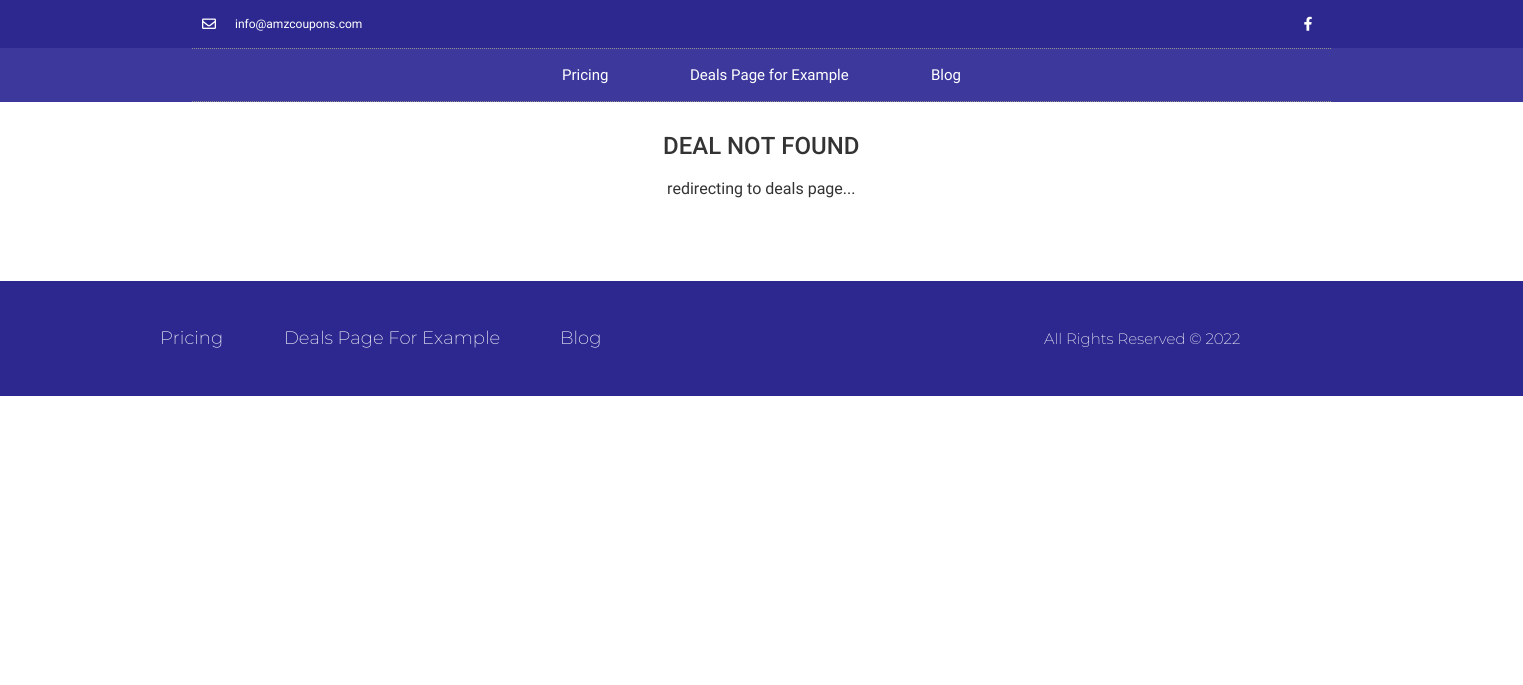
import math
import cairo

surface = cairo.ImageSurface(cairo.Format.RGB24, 1523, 685)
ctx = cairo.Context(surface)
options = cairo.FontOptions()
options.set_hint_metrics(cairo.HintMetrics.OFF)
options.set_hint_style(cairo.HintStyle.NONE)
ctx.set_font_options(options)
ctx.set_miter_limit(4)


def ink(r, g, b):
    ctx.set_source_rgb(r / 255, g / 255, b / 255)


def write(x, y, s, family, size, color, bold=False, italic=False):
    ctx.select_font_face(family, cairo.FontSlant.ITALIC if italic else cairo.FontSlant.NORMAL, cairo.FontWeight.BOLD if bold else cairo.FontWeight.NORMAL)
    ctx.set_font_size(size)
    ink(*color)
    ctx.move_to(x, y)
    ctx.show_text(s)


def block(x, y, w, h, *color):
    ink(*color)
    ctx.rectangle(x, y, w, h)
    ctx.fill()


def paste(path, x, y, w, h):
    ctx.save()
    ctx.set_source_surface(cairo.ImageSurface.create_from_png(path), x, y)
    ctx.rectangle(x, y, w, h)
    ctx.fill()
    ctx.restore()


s1 = dict(family="Roboto", size=12, color=(255, 255, 255))
s2 = dict(family="Roboto", size=15, color=(255, 255, 255))
s3 = dict(family="Roboto Medium", size=24, color=(51, 51, 51))
s4 = dict(family="Roboto", size=16, color=(51, 51, 51))
s5 = dict(family="Montserrat ExtraLight", size=18, color=(255, 255, 255))
s6 = dict(family="Montserrat ExtraLight", size=15, color=(255, 255, 255))

ink(255, 255, 255)
ctx.paint()
block(0, 0, 1523, 48, 45, 40, 143)
paste("pic1.png", 202, 18, 14, 11)
write(235, 28, "info@amzcoupons.com", **s1)
paste("pic2.png", 1304, 16, 8, 15)
block(0, 48, 1523, 54, 61, 56, 156)
ctx.new_path()
ctx.move_to(192, 48.5)
ctx.line_to(1332, 48.5)
ink(142, 142, 142)
ctx.set_line_width(1)
ctx.set_dash([1, 1])
ctx.stroke()
ctx.new_path()
ctx.move_to(192, 101.5)
ctx.line_to(1332, 101.5)
ctx.stroke()
write(562, 80, "Pricing", **s2)
write(690, 80, "Deals Page for Example", **s2)
write(931, 80, "Blog", **s2)
write(663, 154, "DEAL NOT FOUND", **s3)
write(667, 194, "redirecting to deals page...", **s4)
block(0, 281, 1523, 115, 45, 40, 143)
write(160, 344, "Pricing", **s5)
write(284, 344, "Deals Page For Example", **s5)
write(560, 344, "Blog", **s5)
write(1044, 344, "All Rights Reserved © 2022", **s6)
surface.write_to_png("screenshot.png")
